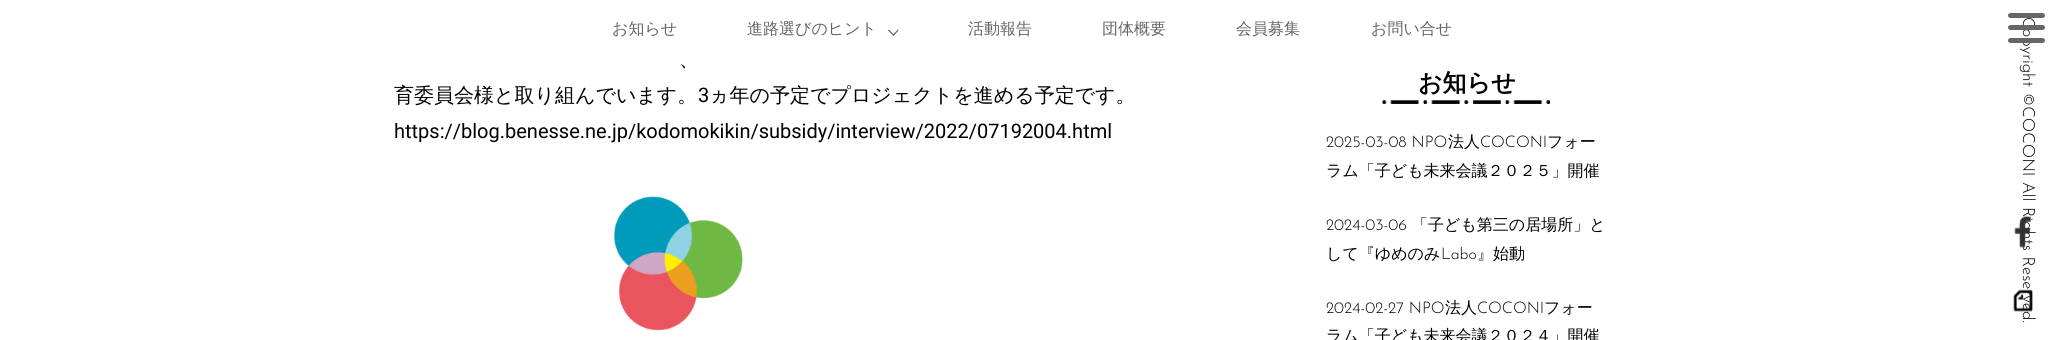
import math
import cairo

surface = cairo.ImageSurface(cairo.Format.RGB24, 2063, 340)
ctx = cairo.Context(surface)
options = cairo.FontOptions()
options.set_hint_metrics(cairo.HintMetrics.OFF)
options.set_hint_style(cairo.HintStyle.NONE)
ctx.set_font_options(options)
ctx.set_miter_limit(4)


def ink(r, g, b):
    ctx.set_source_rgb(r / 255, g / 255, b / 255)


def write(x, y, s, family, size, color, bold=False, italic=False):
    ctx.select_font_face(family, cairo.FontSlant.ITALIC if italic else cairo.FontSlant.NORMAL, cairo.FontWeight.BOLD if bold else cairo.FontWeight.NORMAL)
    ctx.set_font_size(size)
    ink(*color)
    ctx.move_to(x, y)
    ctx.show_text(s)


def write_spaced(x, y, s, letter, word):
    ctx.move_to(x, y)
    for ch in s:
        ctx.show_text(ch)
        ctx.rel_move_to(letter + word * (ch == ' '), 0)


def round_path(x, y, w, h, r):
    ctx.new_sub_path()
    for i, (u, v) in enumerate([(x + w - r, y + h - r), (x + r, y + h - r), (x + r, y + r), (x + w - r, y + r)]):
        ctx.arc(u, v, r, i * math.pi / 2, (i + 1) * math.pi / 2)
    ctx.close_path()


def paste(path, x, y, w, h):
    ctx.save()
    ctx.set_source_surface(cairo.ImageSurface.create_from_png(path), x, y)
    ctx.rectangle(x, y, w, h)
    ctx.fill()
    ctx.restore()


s1 = dict(family="WenQuanYi Zen Hei Medium", size=16, color=(102, 102, 102))
s2 = dict(family="WenQuanYi Zen Hei Medium", size=20, color=(0, 0, 0))
s3 = dict(family="Roboto", size=20, color=(0, 0, 0))
s4 = dict(family="WenQuanYi Zen Hei", size=24, color=(0, 0, 0), bold=True)
s5 = dict(family="Josefin Sans Light", size=16, color=(0, 0, 0))
s6 = dict(family="WenQuanYi Zen Hei Medium", size=16, color=(0, 0, 0))

ink(255, 255, 255)
ctx.paint()
ink(102, 102, 102)
round_path(2008, 13, 37, 5, 2.5)
ctx.fill()
ctx.select_font_face("Josefin Sans Light")
ctx.set_font_size(16.7)
ink(0, 0, 0)
ctx.save()
ctx.translate(2023, 17)
ctx.rotate(90 * math.pi / 180)
write_spaced(0, 0, "Copyright ©COCONI All Rights Reserved.", 0, 0.5)
ctx.restore()
ink(102, 102, 102)
round_path(2008, 25, 37, 5, 2.5)
ctx.fill()
round_path(2008, 38, 37, 5, 2.5)
ctx.fill()
write(612, 34, "お知らせ", **s1)
write(747, 34, "進路選びのヒント", **s1)
ctx.new_path()
ctx.move_to(898, 29.5)
ctx.line_to(898.5, 30.5)
ctx.line_to(893.5, 36)
ctx.line_to(892.5, 35)
ctx.close_path()
ctx.fill()
ctx.new_path()
ctx.move_to(889, 29.5)
ctx.line_to(894, 35)
ctx.line_to(893.5, 36)
ctx.line_to(888, 30.5)
ctx.close_path()
ctx.fill()
write(968, 34, "活動報告", **s1)
write(1102, 34, "団体概要", **s1)
write(1236, 34, "会員募集", **s1)
write(1371, 34, "お問い合せ", **s1)
paste("pic1.png", 2014, 215, 17, 33)
paste("pic2.png", 2013, 289, 20, 23)
write(679, 66, "、", **s2)
write(394, 102, "育委員会様と取り組んでいます。", **s2)
write(698, 102, "3", **s3)
write(709, 102, "ヵ年の予定でプロジェクトを進める予定です。", **s2)
write(394, 138, "https://blog.benesse.ne.jp/kodomokikin/subsidy/interview/2022/07192004.html", **s3)
paste("pic3.png", 614, 196, 129, 135)
write(1418, 91, "お知らせ", **s4)
paste("pic4.png", 1382, 100, 168, 4)
write(1326, 147, "2025-03-08 NPO", **s5)
write(1448, 147, "法人", **s6)
write(1480, 147, "COCONI", **s5)
write(1547, 147, "フォー", **s6)
write(1326, 176, "ラム「子ども未来会議２０２５」開催", **s6)
write(1326, 230, "2024-03-06", **s5)
write(1412, 230, "「子ども第三の居場所」と", **s6)
write(1326, 259, "して『ゆめのみ", **s6)
write(1441, 259, "Labo", **s5)
write(1477, 259, "』始動", **s6)
write(1326, 313, "2024-02-27 NPO", **s5)
write(1445, 313, "法人", **s6)
write(1477, 313, "COCONI", **s5)
write(1544, 313, "フォー", **s6)
write(1326, 341, "ラム「子ども未来会議２０２４」開催", **s6)
surface.write_to_png("screenshot.png")
